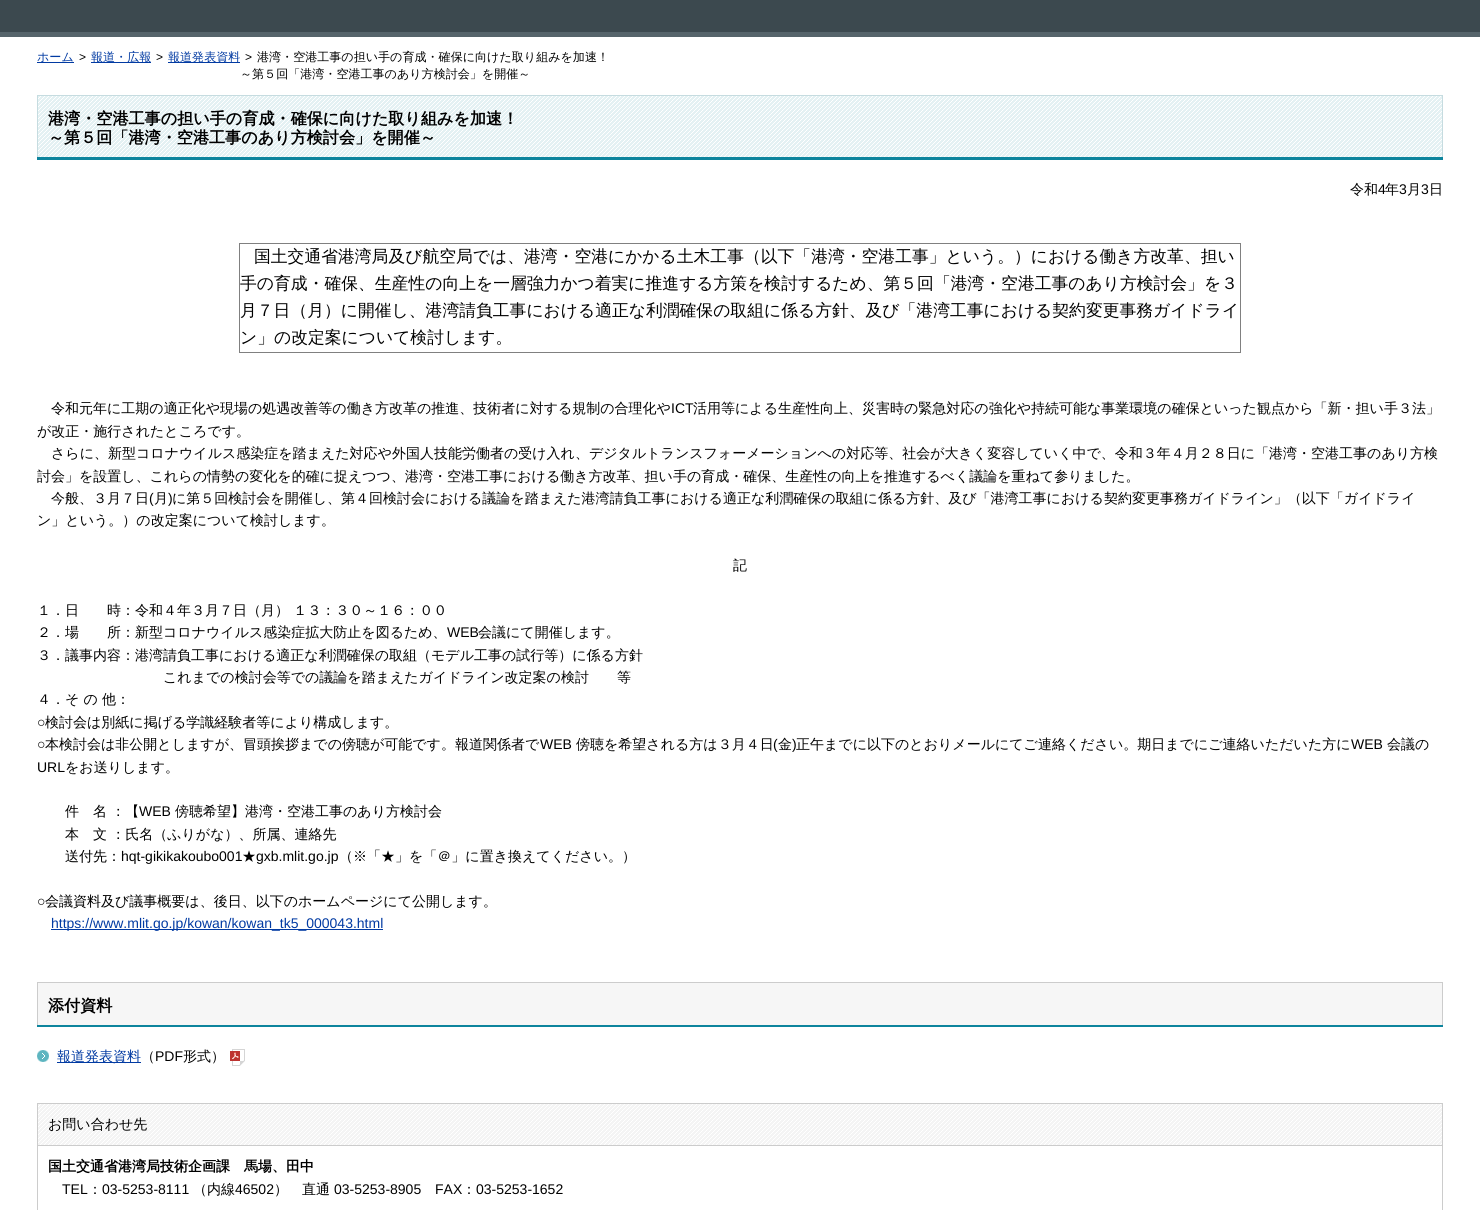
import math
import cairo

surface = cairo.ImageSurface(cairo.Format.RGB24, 1480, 1210)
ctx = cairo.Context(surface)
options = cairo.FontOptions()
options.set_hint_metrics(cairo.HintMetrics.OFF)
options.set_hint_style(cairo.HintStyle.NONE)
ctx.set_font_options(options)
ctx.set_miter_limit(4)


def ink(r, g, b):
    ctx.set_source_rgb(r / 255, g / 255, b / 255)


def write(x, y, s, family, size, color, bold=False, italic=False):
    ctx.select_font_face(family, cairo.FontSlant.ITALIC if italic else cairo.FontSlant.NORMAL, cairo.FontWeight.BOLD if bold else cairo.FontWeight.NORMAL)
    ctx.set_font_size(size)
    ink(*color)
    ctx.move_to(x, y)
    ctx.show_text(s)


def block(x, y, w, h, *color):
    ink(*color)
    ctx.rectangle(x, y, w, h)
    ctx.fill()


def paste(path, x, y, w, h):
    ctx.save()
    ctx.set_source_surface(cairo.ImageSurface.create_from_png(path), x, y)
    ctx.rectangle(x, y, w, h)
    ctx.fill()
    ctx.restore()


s1 = dict(family="WenQuanYi Zen Hei Medium", size=12.05, color=(1, 58, 162))
s2 = dict(family="Liberation Sans", size=12.05, color=(0, 0, 0))
s3 = dict(family="WenQuanYi Zen Hei Medium", size=12.05, color=(0, 0, 0))
s4 = dict(family="WenQuanYi Zen Hei", size=16.1, color=(0, 0, 0), bold=True)
s5 = dict(family="WenQuanYi Zen Hei Medium", size=14, color=(0, 0, 0))
s6 = dict(family="Liberation Sans", size=14, color=(0, 0, 0))
s7 = dict(family="WenQuanYi Zen Hei Medium", size=16.8, color=(0, 0, 0))
s8 = dict(family="Liberation Sans", size=14, color=(1, 58, 162))
s9 = dict(family="WenQuanYi Zen Hei Medium", size=14, color=(1, 58, 162))
s10 = dict(family="WenQuanYi Zen Hei", size=14, color=(0, 0, 0), bold=True)

ink(255, 255, 255)
ctx.paint()
block(0, 0, 1480, 32, 60, 73, 79)
block(0, 32, 1480, 5, 86, 100, 107)
block(37, 62, 37, 1, 1, 58, 162)
write(37, 61, "ホーム", **s1)
write(79, 61, ">", **s2)
block(91, 62, 60, 1, 1, 58, 162)
write(91, 61, "報道・広報", **s1)
write(156, 61, ">", **s2)
block(168, 62, 72, 1, 1, 58, 162)
write(168, 61, "報道発表資料", **s1)
write(245, 61, ">", **s2)
write(257, 61, "港湾・空港工事の担い手の育成・確保に向けた取り組みを加速！", **s3)
write(240, 78, "～第５回「港湾・空港工事のあり方検討会」を開催～", **s3)
block(37, 157, 1406, 3, 13, 132, 157)
paste("pic1.png", 38, 96, 1404, 61)
block(37, 95, 1406, 1, 198, 220, 224)
block(1442, 95, 1, 62, 198, 220, 224)
block(37, 95, 1, 62, 198, 220, 224)
write(48, 124, "港湾・空港工事の担い手の育成・確保に向けた取り組みを加速！", **s4)
write(48, 143, "～第５回「港湾・空港工事のあり方検討会」を開催～", **s4)
write(1350, 194, "令和", **s5)
write(1378, 194, "4", **s6)
write(1385, 194, "年", **s5)
write(1399, 194, "3", **s6)
write(1407, 194, "月", **s5)
write(1421, 194, "3", **s6)
write(1429, 194, "日", **s5)
block(239, 243, 1002, 1, 128, 128, 128)
block(1240, 243, 1, 110, 128, 128, 128)
block(239, 352, 1002, 1, 128, 128, 128)
block(239, 243, 1, 110, 128, 128, 128)
write(254, 262, "国土交通省港湾局及び航空局では、港湾・空港にかかる土木工事（以下「港湾・空港工事」という。）における働き方改革、担い", **s7)
write(240, 289, "手の育成・確保、生産性の向上を一層強力かつ着実に推進する方策を検討するため、第５回「港湾・空港工事のあり方検討会」を３", **s7)
write(240, 316, "月７日（月）に開催し、港湾請負工事における適正な利潤確保の取組に係る方針、及び「港湾工事における契約変更事務ガイドライ", **s7)
write(240, 343, "ン」の改定案について検討します。", **s7)
write(51, 413, "令和元年に工期の適正化や現場の処遇改善等の働き方改革の推進、技術者に対する規制の合理化や", **s5)
write(671, 413, "ICT", **s6)
write(693, 413, "活用等による生産性向上、災害時の緊急対応の強化や持続可能な事業環境の確保といった観点から「新・担い手３法」", **s5)
write(37, 436, "が改正・施行されたところです。", **s5)
write(51, 458, "さらに、新型コロナウイルス感染症を踏まえた対応や外国人技能労働者の受け入れ、デジタルトランスフォーメーションへの対応等、社会が大きく変容していく中で、令和３年４月２８日に「港湾・空港工事のあり方検", **s5)
write(37, 481, "討会」を設置し、これらの情勢の変化を的確に捉えつつ、港湾・空港工事における働き方改革、担い手の育成・確保、生産性の向上を推進するべく議論を重ねて参りました。", **s5)
write(51, 503, "今般、３月７日", **s5)
write(149, 503, "(", **s6)
write(154, 503, "月", **s5)
write(168, 503, ")", **s6)
write(172, 503, "に第５回検討会を開催し、第４回検討会における議論を踏まえた港湾請負工事における適正な利潤確保の取組に係る方針、及び「港湾工事における契約変更事務ガイドライン」（以下「ガイドライ", **s5)
write(37, 525, "ン」という。）の改定案について検討します。", **s5)
write(733, 570, "記", **s5)
write(37, 615, "１．日　　時：令和４年３月７日（月） １３：３０～１６：００", **s5)
write(37, 637, "２．場　　所：新型コロナウイルス感染症拡大防止を図るため、", **s5)
write(447, 637, "WEB", **s6)
write(478, 637, "会議にて開催します。", **s5)
write(37, 660, "３．議事内容：港湾請負工事における適正な利潤確保の取組（モデル工事の試行等）に係る方針", **s5)
write(163, 682, "これまでの検討会等での議論を踏まえたガイドライン改定案の検討　　等", **s5)
write(37, 704, "４．そ の 他：", **s5)
write(37, 727, "○", **s6)
write(45, 727, "検討会は別紙に掲げる学識経験者等により構成します。", **s5)
write(37, 749, "○", **s6)
write(45, 749, "本検討会は非公開としますが、冒頭挨拶までの傍聴が可能です。報道関係者で", **s5)
write(540, 749, "WEB", **s6)
write(576, 749, "傍聴を希望される方は３月４日", **s5)
write(773, 749, "(", **s6)
write(778, 749, "金", **s5)
write(792, 749, ")", **s6)
write(796, 749, "正午までに以下のとおりメールにてご連絡ください。期日までにご連絡いただいた方に", **s5)
write(1351, 749, "WEB", **s6)
write(1387, 749, "会議の", **s5)
write(37, 772, "URL", **s6)
write(65, 772, "をお送りします。", **s5)
write(65, 816, "件　名 ：【", **s5)
write(139, 816, "WEB", **s6)
write(175, 816, "傍聴希望】港湾・空港工事のあり方検討会", **s5)
write(65, 839, "本　文 ：氏名（ふりがな）、所属、連絡先", **s5)
write(65, 861, "送付先：", **s5)
write(121, 861, "hqt-gikikakoubo001", **s6)
write(242, 861, "★", **s5)
write(256, 861, "gxb.mlit.go.jp", **s6)
write(339, 861, "（※「★」を「＠」に置き換えてください。）", **s5)
write(37, 906, "○", **s6)
write(45, 906, "会議資料及び議事概要は、後日、以下のホームページにて公開します。", **s5)
block(51, 929, 332, 1, 1, 58, 162)
write(51, 928, "https://www.mlit.go.jp/kowan/kowan_tk5_000043.html", **s8)
block(37, 1025, 1406, 2, 13, 132, 157)
block(38, 983, 1404, 42, 246, 246, 246)
block(37, 982, 1406, 1, 204, 204, 204)
block(1442, 982, 1, 43, 204, 204, 204)
block(37, 982, 1, 43, 204, 204, 204)
write(48, 1011, "添付資料", **s4)
paste("pic2.png", 37, 1050, 12, 12)
block(57, 1062, 84, 1, 1, 58, 162)
write(57, 1061, "報道発表資料", **s9)
write(141, 1061, "（", **s5)
write(155, 1061, "PDF", **s6)
write(183, 1061, "形式）", **s5)
paste("pic3.png", 230, 1049, 15, 17)
ctx.rectangle(37.5, 1103.5, 1405, 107)
ink(204, 204, 204)
ctx.set_line_width(1)
ctx.stroke()
paste("pic4.png", 38, 1104, 1404, 41)
block(38, 1145, 1404, 1, 204, 204, 204)
write(48, 1129, "お問い合わせ先", **s5)
write(48, 1171, "国土交通省港湾局技術企画課　馬場、田中", **s10)
write(62, 1194, "TEL", **s6)
write(88, 1194, "：", **s5)
write(102, 1194, "03-5253-8111", **s6)
write(193, 1194, "（内線", **s5)
write(235, 1194, "46502", **s6)
write(274, 1194, "）　直通", **s5)
write(334, 1194, "03-5253-8905", **s6)
write(435, 1194, "FAX", **s6)
write(462, 1194, "：", **s5)
write(476, 1194, "03-5253-1652", **s6)
surface.write_to_png("screenshot.png")
